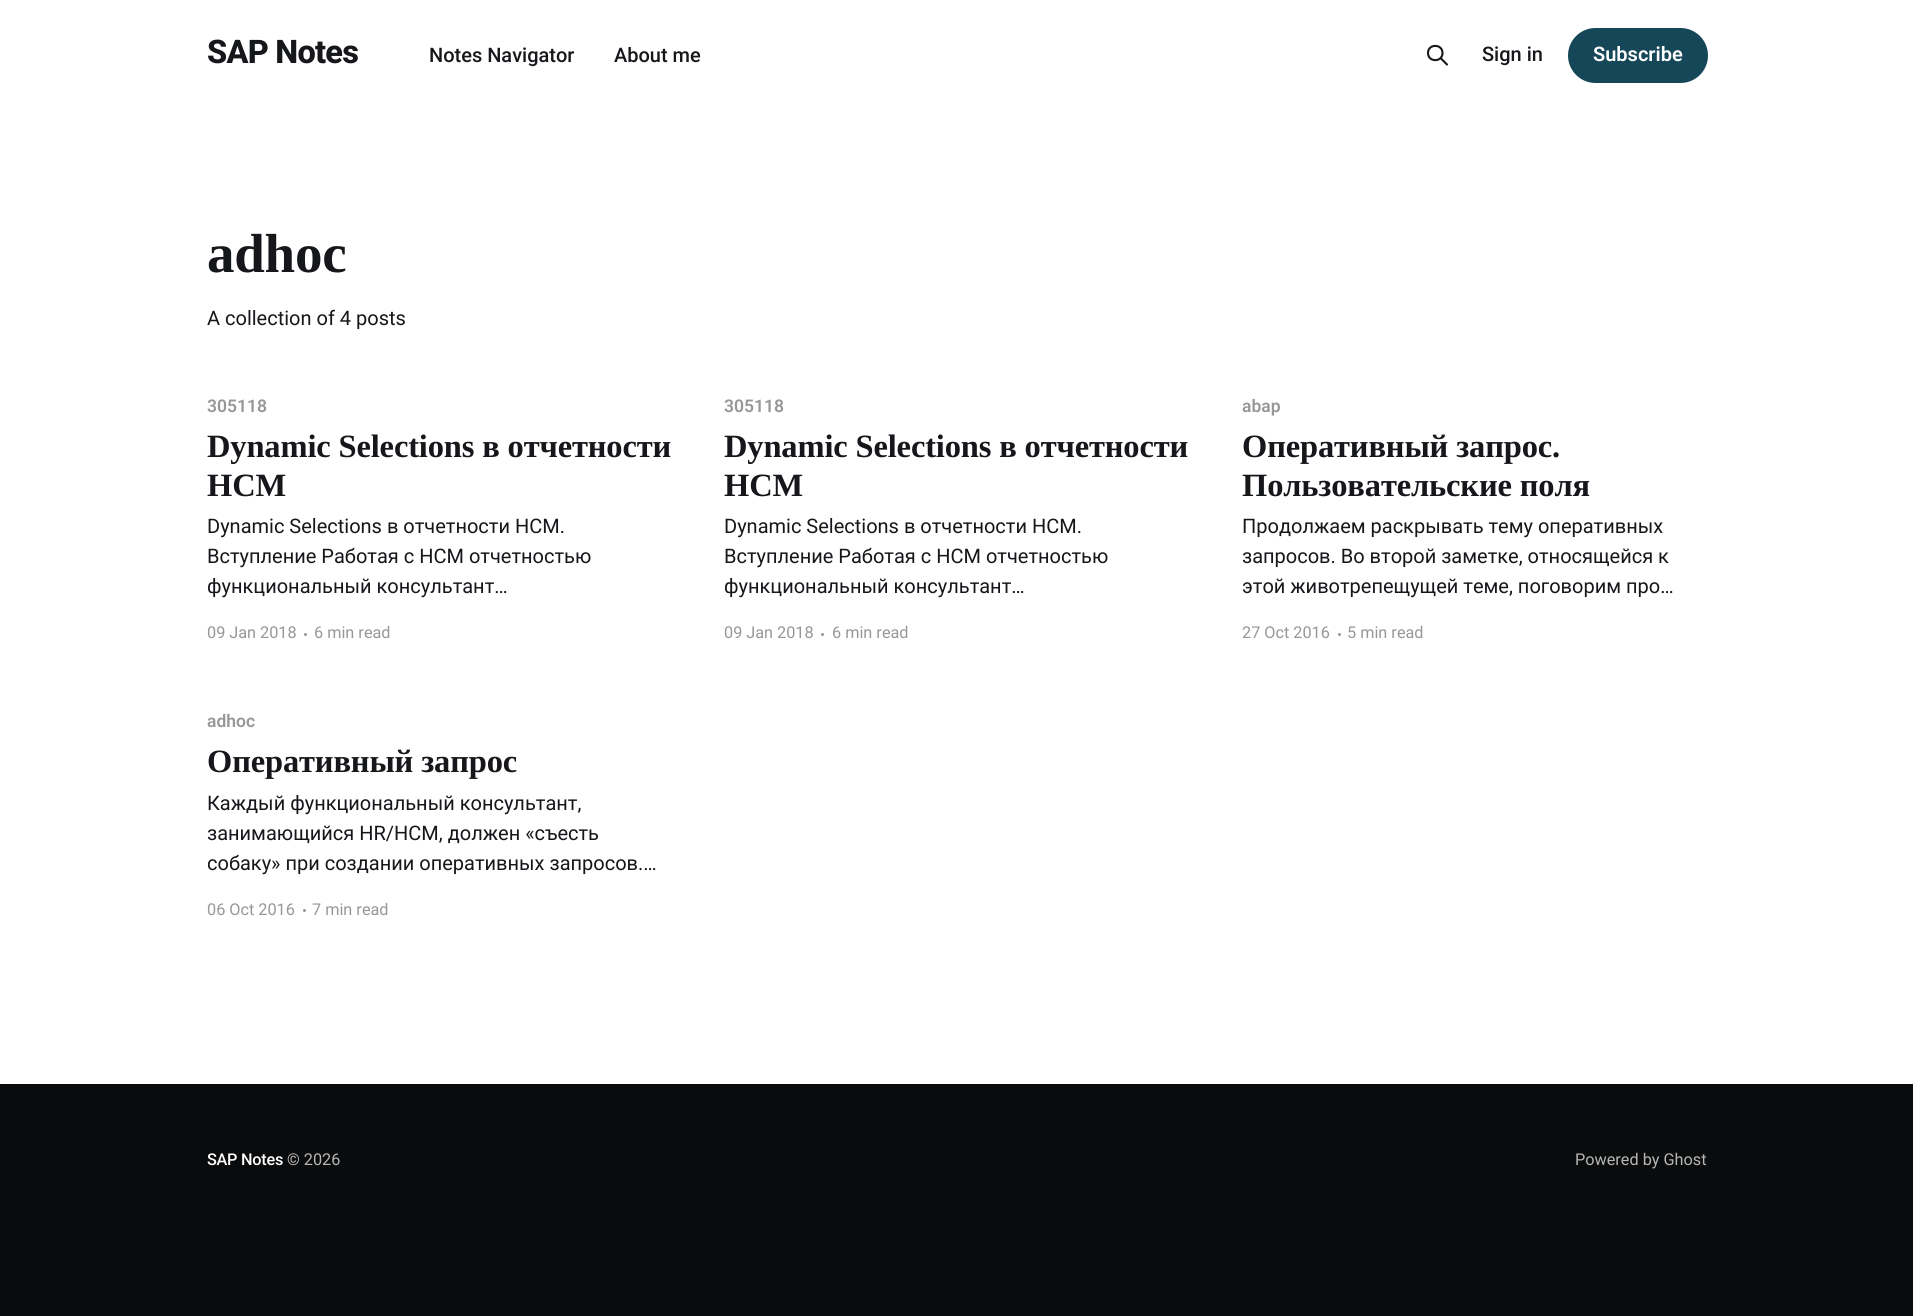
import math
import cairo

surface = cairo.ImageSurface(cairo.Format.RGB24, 1913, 1316)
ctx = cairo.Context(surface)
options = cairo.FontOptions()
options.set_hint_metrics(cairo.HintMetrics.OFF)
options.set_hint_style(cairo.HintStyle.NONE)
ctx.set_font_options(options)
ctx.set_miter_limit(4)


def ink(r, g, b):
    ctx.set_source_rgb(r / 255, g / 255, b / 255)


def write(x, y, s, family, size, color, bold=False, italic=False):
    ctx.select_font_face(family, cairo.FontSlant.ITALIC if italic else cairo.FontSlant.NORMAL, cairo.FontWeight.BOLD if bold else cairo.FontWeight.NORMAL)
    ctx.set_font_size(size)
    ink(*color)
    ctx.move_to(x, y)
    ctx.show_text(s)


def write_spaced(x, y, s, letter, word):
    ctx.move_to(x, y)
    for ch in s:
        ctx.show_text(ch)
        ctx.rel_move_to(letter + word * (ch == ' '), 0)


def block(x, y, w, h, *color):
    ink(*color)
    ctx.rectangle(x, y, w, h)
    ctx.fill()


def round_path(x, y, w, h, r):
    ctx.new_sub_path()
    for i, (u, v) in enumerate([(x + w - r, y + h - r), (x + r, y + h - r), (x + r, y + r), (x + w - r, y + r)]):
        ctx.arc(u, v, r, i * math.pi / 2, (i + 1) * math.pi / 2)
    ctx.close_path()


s1 = dict(family="Roboto Medium", size=20, color=(21, 23, 26))
s2 = dict(family="Roboto SemiBold", size=20, color=(255, 255, 255))
s3 = dict(family="Roboto", size=20, color=(21, 23, 26))
s4 = dict(family="Roboto SemiBold", size=17.5, color=(151, 151, 151))
s5 = dict(family="Roboto", size=16.25, color=(151, 151, 151))
s6 = dict(family="Roboto", size=16.25, color=(182, 182, 182))

ink(255, 255, 255)
ctx.paint()
ctx.select_font_face("Roboto ExtraBold")
ctx.set_font_size(32.5)
ink(21, 23, 26)
write_spaced(207, 63, "SAP Notes", -0.75, 0)
write(429, 62, "Notes Navigator", **s1)
write(614, 62, "About me", **s1)
ctx.new_path()
ctx.move_to(1447, 64.5)
ctx.line_to(1440.5, 58)
ctx.move_to(1442.5, 53)
ctx.curve_to(1442.5, 62.5, 1428, 62.5, 1428, 53)
ctx.curve_to(1428, 43.5, 1442.5, 43.5, 1442.5, 53)
ctx.close_path()
ctx.set_line_width(2.1)
ctx.set_line_cap(cairo.LineCap.ROUND)
ctx.set_line_join(cairo.LineJoin.ROUND)
ctx.stroke()
write(1482, 61, "Sign in", **s1)
ink(22, 71, 88)
round_path(1568, 28, 140, 55, 27.5)
ctx.fill()
write(1593, 61, "Subscribe", **s2)
ctx.select_font_face("Liberation Serif", cairo.FontSlant.NORMAL, cairo.FontWeight.BOLD)
ctx.set_font_size(55)
ink(21, 23, 26)
write_spaced(207, 272, "adhoc", -0.25, 0)
write(207, 325, "A collection of 4 posts", **s3)
write(207, 412, "305118", **s4)
ctx.select_font_face("Liberation Serif", cairo.FontSlant.NORMAL, cairo.FontWeight.BOLD)
ctx.set_font_size(32.5)
ink(21, 23, 26)
write_spaced(207, 457, "Dynamic Selections в отчетности", -0.15, 0)
write_spaced(207, 496, "HCM", -0.15, 0)
write(207, 533, "Dynamic Selections в отчетности HCM.", **s3)
write(207, 563, "Вступление Работая с HCM отчетностью", **s3)
write(207, 593, "функциональный консультант…", **s3)
write(207, 638, "09 Jan 2018", **s5)
ctx.new_path()
ctx.arc(305.5, 634.5, 1.5, 0, 2 * math.pi)
ctx.fill()
write(314, 638, "6 min read", **s5)
write(724, 412, "305118", **s4)
ctx.select_font_face("Liberation Serif", cairo.FontSlant.NORMAL, cairo.FontWeight.BOLD)
ctx.set_font_size(32.5)
ink(21, 23, 26)
write_spaced(724, 457, "Dynamic Selections в отчетности", -0.15, 0)
write_spaced(724, 496, "HCM", -0.15, 0)
write(724, 533, "Dynamic Selections в отчетности HCM.", **s3)
write(724, 563, "Вступление Работая с HCM отчетностью", **s3)
write(724, 593, "функциональный консультант…", **s3)
write(724, 638, "09 Jan 2018", **s5)
ctx.new_path()
ctx.arc(822.5, 634.5, 1.5, 0, 2 * math.pi)
ctx.fill()
write(832, 638, "6 min read", **s5)
write(1242, 412, "abap", **s4)
ctx.select_font_face("Liberation Serif", cairo.FontSlant.NORMAL, cairo.FontWeight.BOLD)
ctx.set_font_size(32.5)
ink(21, 23, 26)
write_spaced(1242, 457, "Оперативный запрос.", -0.15, 0)
write_spaced(1242, 496, "Пользовательские поля", -0.15, 0)
write(1242, 533, "Продолжаем раскрывать тему оперативных", **s3)
write(1242, 563, "запросов. Во второй заметке, относящейся к", **s3)
write(1242, 593, "этой животрепещущей теме, поговорим про…", **s3)
write(1242, 638, "27 Oct 2016", **s5)
ctx.new_path()
ctx.arc(1339.5, 634.5, 1.5, 0, 2 * math.pi)
ctx.fill()
write(1347, 638, "5 min read", **s5)
write(207, 727, "adhoc", **s4)
ctx.select_font_face("Liberation Serif", cairo.FontSlant.NORMAL, cairo.FontWeight.BOLD)
ctx.set_font_size(32.5)
ink(21, 23, 26)
write_spaced(207, 772, "Оперативный запрос", -0.15, 0)
write(207, 810, "Каждый функциональный консультант,", **s3)
write(207, 840, "занимающийся HR/HCM, должен «съесть", **s3)
ctx.save()
ctx.rectangle(208, 789, 463, 90)
ctx.clip()
write(207, 870, "собаку» при создании оперативных запросов.…", **s3)
ctx.restore()
write(207, 915, "06 Oct 2016", **s5)
ctx.new_path()
ctx.arc(304.5, 910.5, 1.5, 0, 2 * math.pi)
ctx.fill()
write(312, 915, "7 min read", **s5)
block(0, 1084, 1913, 232, 10, 11, 12)
ctx.select_font_face("Roboto Medium")
ink(255, 255, 255)
write_spaced(207, 1165, "SAP Notes", -0.25, 0)
write(287, 1165, "© 2026", **s6)
write(1575, 1165, "Powered by Ghost", **s6)
surface.write_to_png("screenshot.png")
